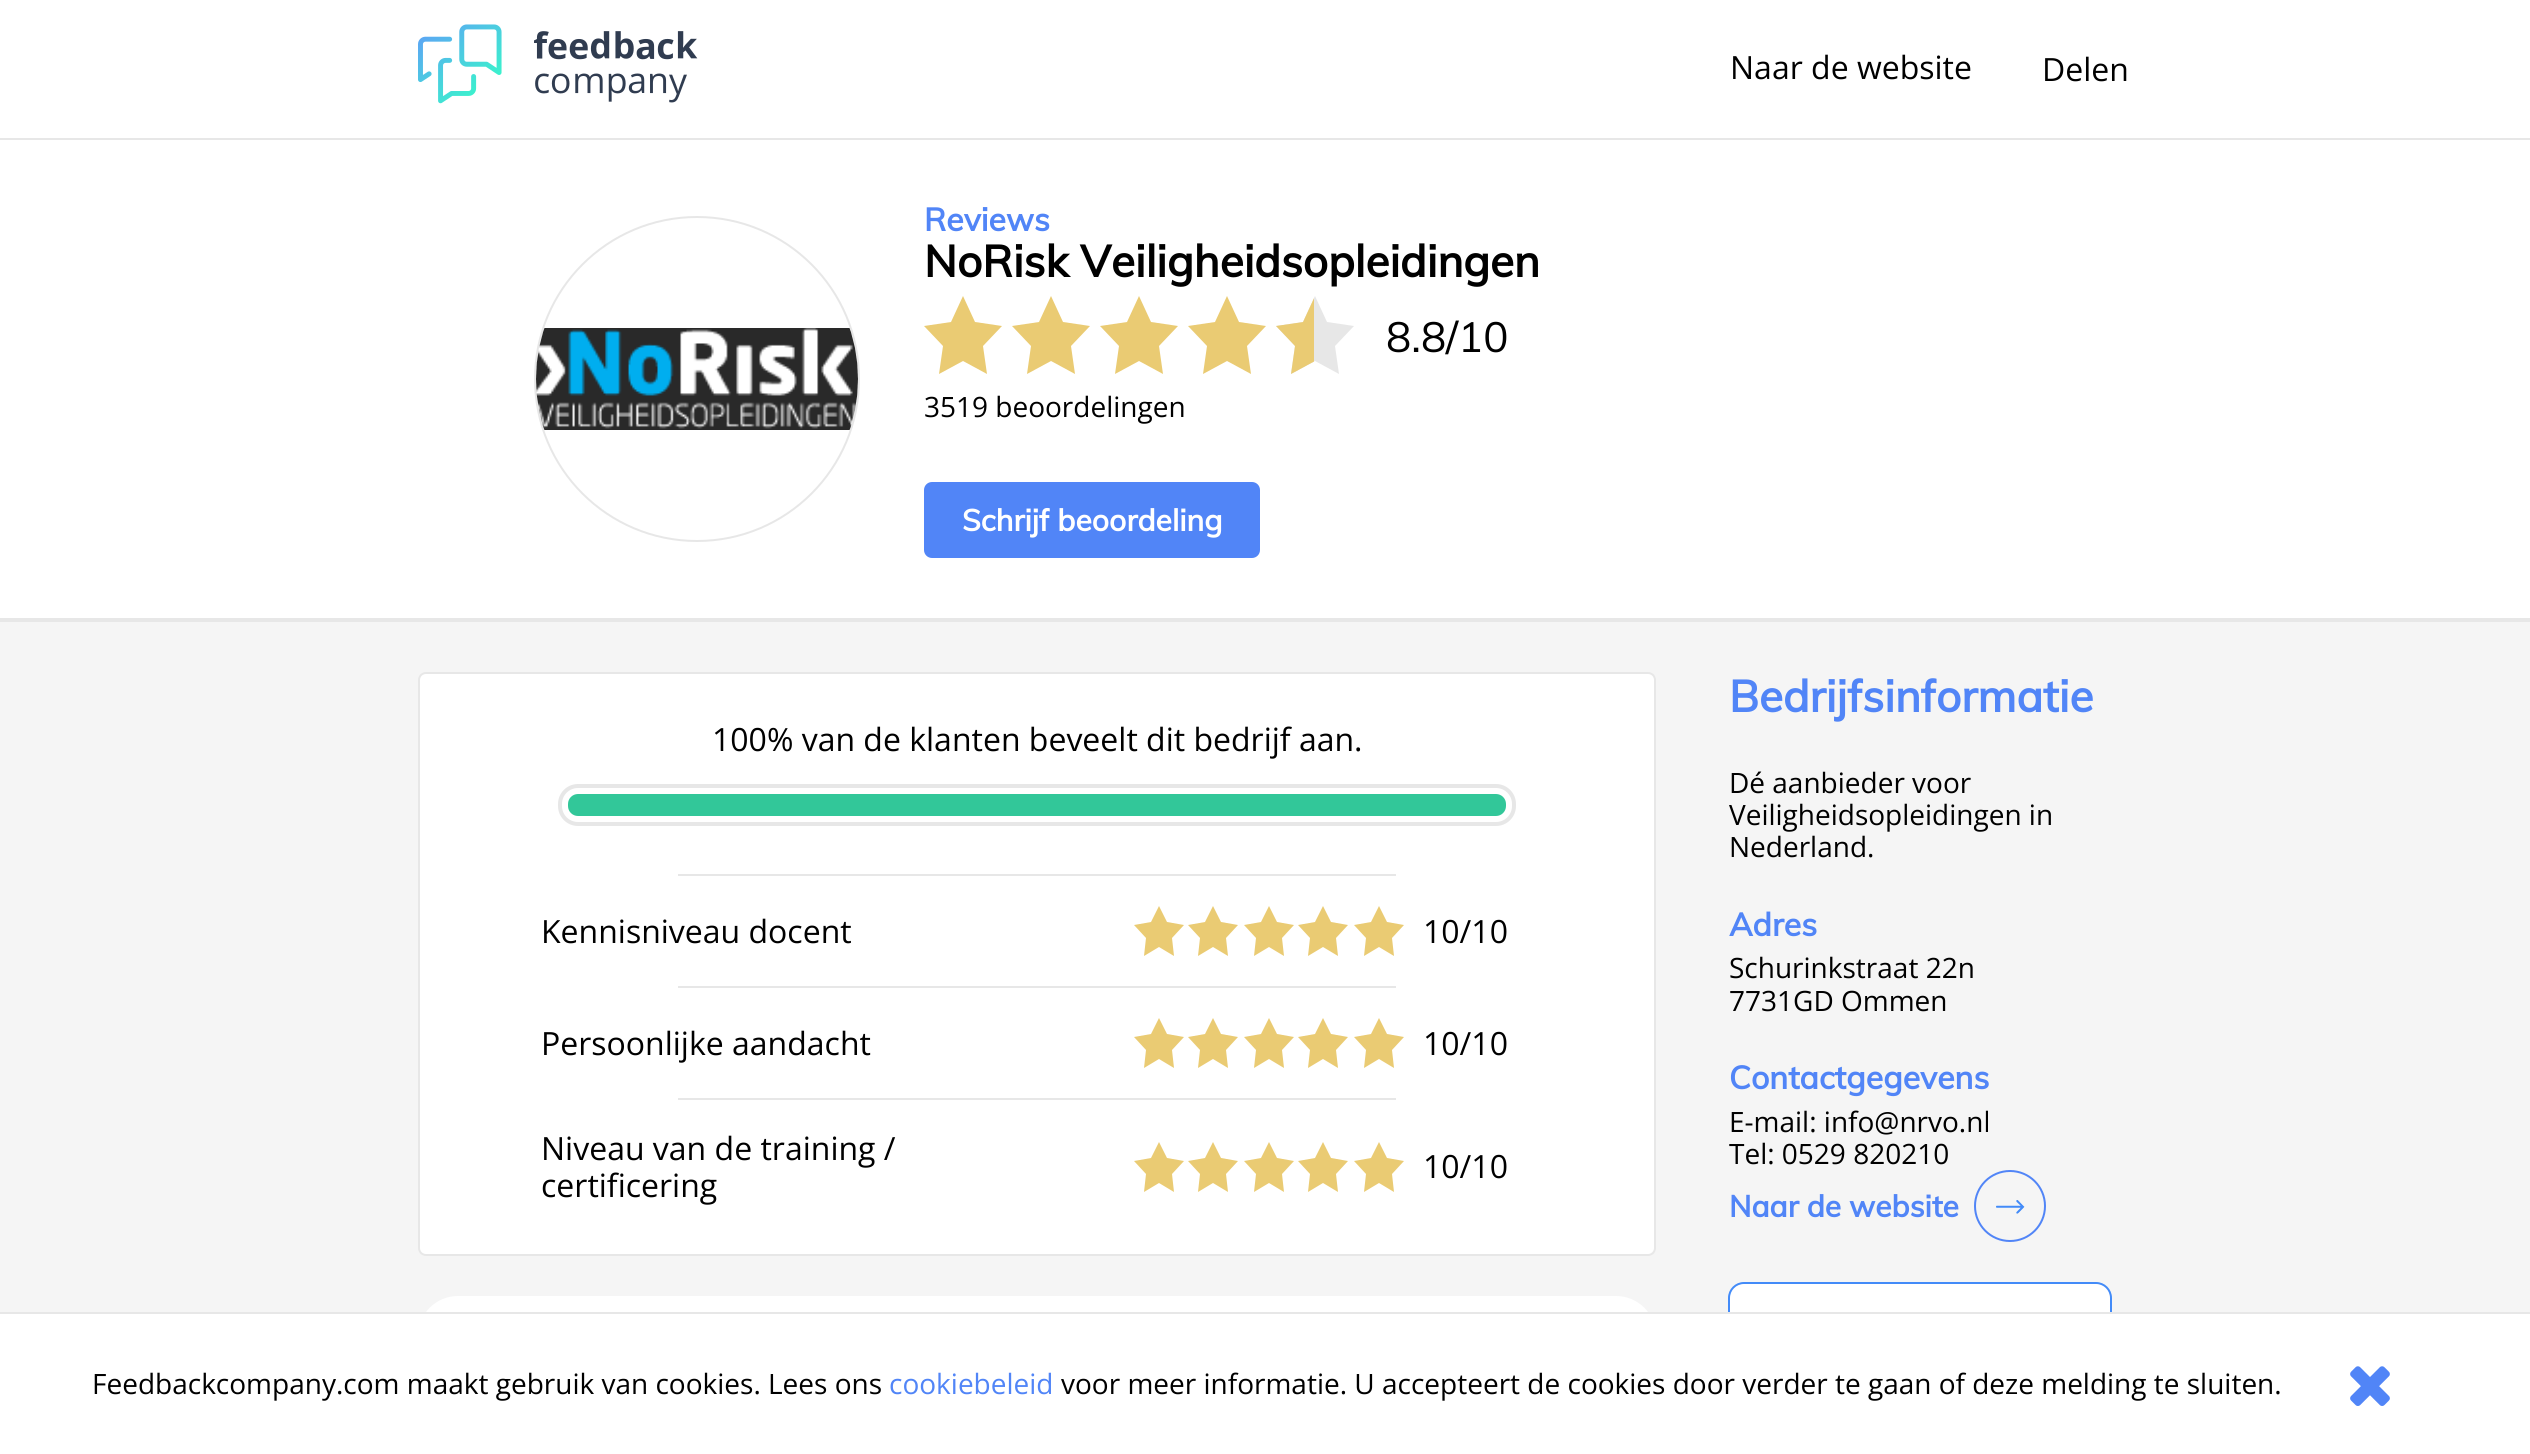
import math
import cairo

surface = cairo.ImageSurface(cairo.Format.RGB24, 2530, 1454)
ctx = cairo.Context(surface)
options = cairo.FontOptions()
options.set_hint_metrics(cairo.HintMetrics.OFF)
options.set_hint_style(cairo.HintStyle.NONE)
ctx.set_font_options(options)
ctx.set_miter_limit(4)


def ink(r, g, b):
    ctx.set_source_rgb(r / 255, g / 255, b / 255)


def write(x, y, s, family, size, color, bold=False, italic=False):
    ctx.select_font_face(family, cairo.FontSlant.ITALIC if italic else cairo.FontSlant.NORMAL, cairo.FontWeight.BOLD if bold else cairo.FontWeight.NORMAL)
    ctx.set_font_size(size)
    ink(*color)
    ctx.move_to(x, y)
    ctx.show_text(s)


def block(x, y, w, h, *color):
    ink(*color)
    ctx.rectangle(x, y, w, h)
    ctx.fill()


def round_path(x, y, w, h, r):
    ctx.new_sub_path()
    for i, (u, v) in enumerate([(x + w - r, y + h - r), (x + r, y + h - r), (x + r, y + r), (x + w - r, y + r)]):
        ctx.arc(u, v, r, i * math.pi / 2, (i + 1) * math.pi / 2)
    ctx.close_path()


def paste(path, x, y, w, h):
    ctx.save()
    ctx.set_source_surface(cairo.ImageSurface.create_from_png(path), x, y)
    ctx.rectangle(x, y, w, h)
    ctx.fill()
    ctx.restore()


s1 = dict(family="Open Sans", size=32, color=(0, 0, 0))
s2 = dict(family="Muli", size=32, color=(81, 133, 247), bold=True)
s3 = dict(family="Muli", size=44, color=(0, 0, 0), bold=True)
s4 = dict(family="Muli", size=42, color=(0, 0, 0))
s5 = dict(family="Open Sans", size=28, color=(0, 0, 0))
s6 = dict(family="Muli", size=30, color=(255, 255, 255), bold=True)
s7 = dict(family="Muli", size=44, color=(81, 133, 247), bold=True)
s8 = dict(family="Muli", size=30, color=(81, 133, 247), bold=True)
s9 = dict(family="Open Sans", size=28, color=(81, 133, 247))

ink(245, 245, 245)
ctx.paint()
block(0, 0, 2530, 138, 255, 255, 255)
block(0, 138, 2530, 2, 231, 231, 231)
paste("pic1.png", 418, 24, 280, 80)
write(1730, 79, "Naar de website", **s1)
write(2042, 81, "Delen", **s1)
block(0, 140, 2530, 478, 255, 255, 255)
block(0, 618, 2530, 4, 231, 231, 231)
ctx.new_path()
ctx.arc(697, 379, 162, 0, 2 * math.pi)
ctx.stroke()
paste("pic2.png", 536, 328, 322, 102)
write(924, 231, "Reviews", **s2)
write(924, 277, "NoRisk Veiligheidsopleidingen", **s3)
ink(234, 203, 115)
ctx.set_fill_rule(cairo.FillRule.EVEN_ODD)
ctx.new_path()
ctx.move_to(924, 296)
ctx.line_to(1002, 296)
ctx.line_to(1002, 374)
ctx.line_to(924, 374)
ctx.close_path()
ctx.move_to(924, 296)
ctx.line_to(1002, 296)
ctx.line_to(1002, 374)
ctx.line_to(924, 374)
ctx.close_path()
ctx.move_to(963, 296)
ctx.line_to(975, 322)
ctx.line_to(1002, 326)
ctx.line_to(983, 346)
ctx.line_to(987, 374)
ctx.line_to(963, 361)
ctx.line_to(939, 374)
ctx.line_to(943, 346)
ctx.line_to(924, 326)
ctx.line_to(951, 322)
ctx.close_path()
ctx.fill()
ctx.new_path()
ctx.move_to(1012, 296)
ctx.line_to(1090, 296)
ctx.line_to(1090, 374)
ctx.line_to(1012, 374)
ctx.close_path()
ctx.move_to(1012, 296)
ctx.line_to(1090, 296)
ctx.line_to(1090, 374)
ctx.line_to(1012, 374)
ctx.close_path()
ctx.move_to(1051, 296)
ctx.line_to(1063, 322)
ctx.line_to(1090, 326)
ctx.line_to(1071, 346)
ctx.line_to(1075, 374)
ctx.line_to(1051, 361)
ctx.line_to(1027, 374)
ctx.line_to(1031, 346)
ctx.line_to(1012, 326)
ctx.line_to(1039, 322)
ctx.close_path()
ctx.fill()
ctx.new_path()
ctx.move_to(1100, 296)
ctx.line_to(1178, 296)
ctx.line_to(1178, 374)
ctx.line_to(1100, 374)
ctx.close_path()
ctx.move_to(1100, 296)
ctx.line_to(1178, 296)
ctx.line_to(1178, 374)
ctx.line_to(1100, 374)
ctx.close_path()
ctx.move_to(1139, 296)
ctx.line_to(1151, 322)
ctx.line_to(1178, 326)
ctx.line_to(1159, 346)
ctx.line_to(1163, 374)
ctx.line_to(1139, 361)
ctx.line_to(1115, 374)
ctx.line_to(1119, 346)
ctx.line_to(1100, 326)
ctx.line_to(1127, 322)
ctx.close_path()
ctx.fill()
ctx.new_path()
ctx.move_to(1188, 296)
ctx.line_to(1266, 296)
ctx.line_to(1266, 374)
ctx.line_to(1188, 374)
ctx.close_path()
ctx.move_to(1188, 296)
ctx.line_to(1266, 296)
ctx.line_to(1266, 374)
ctx.line_to(1188, 374)
ctx.close_path()
ctx.move_to(1227, 296)
ctx.line_to(1239, 322)
ctx.line_to(1266, 326)
ctx.line_to(1247, 346)
ctx.line_to(1251, 374)
ctx.line_to(1227, 361)
ctx.line_to(1203, 374)
ctx.line_to(1207, 346)
ctx.line_to(1188, 326)
ctx.line_to(1215, 322)
ctx.close_path()
ctx.fill()
ink(231, 231, 231)
ctx.new_path()
ctx.move_to(1276, 296)
ctx.line_to(1354, 296)
ctx.line_to(1354, 374)
ctx.line_to(1276, 374)
ctx.close_path()
ctx.move_to(1276, 296)
ctx.line_to(1354, 296)
ctx.line_to(1354, 374)
ctx.line_to(1276, 374)
ctx.close_path()
ctx.move_to(1315, 296)
ctx.line_to(1327, 322)
ctx.line_to(1354, 326)
ctx.line_to(1335, 346)
ctx.line_to(1339, 374)
ctx.line_to(1315, 361)
ctx.line_to(1291, 374)
ctx.line_to(1295, 346)
ctx.line_to(1276, 326)
ctx.line_to(1303, 322)
ctx.close_path()
ctx.fill()
ctx.save()
ctx.set_fill_rule(cairo.FillRule.WINDING)
ctx.rectangle(1276, 296, 38, 78)
ctx.clip()
ink(234, 203, 115)
ctx.set_fill_rule(cairo.FillRule.EVEN_ODD)
ctx.new_path()
ctx.move_to(1276, 296)
ctx.line_to(1354, 296)
ctx.line_to(1354, 374)
ctx.line_to(1276, 374)
ctx.close_path()
ctx.move_to(1276, 296)
ctx.line_to(1354, 296)
ctx.line_to(1354, 374)
ctx.line_to(1276, 374)
ctx.close_path()
ctx.move_to(1315, 296)
ctx.line_to(1327, 322)
ctx.line_to(1354, 326)
ctx.line_to(1335, 346)
ctx.line_to(1339, 374)
ctx.line_to(1315, 361)
ctx.line_to(1291, 374)
ctx.line_to(1295, 346)
ctx.line_to(1276, 326)
ctx.line_to(1303, 322)
ctx.close_path()
ctx.fill()
ctx.restore()
write(1386, 352, "8.8/10", **s4)
write(924, 417, "3519 beoordelingen", **s5)
ink(81, 133, 247)
round_path(924, 482, 336, 76, 8)
ctx.fill()
write(962, 531, "Schrijf beoordeling", **s6)
round_path(419, 673, 1236, 582, 7)
ctx.fill_preserve()
ink(231, 231, 231)
ctx.stroke()
write(712, 751, "100% van de klanten beveelt dit bedrijf aan.", **s1)
round_path(560, 786, 954, 38, 18)
ink(231, 231, 231)
ctx.set_line_width(4)
ctx.stroke()
ink(50, 199, 153)
round_path(568, 794, 938, 22, 10)
ctx.fill()
block(678, 874, 718, 2, 231, 231, 231)
write(541, 943, "Kennisniveau docent", **s1)
ink(234, 203, 115)
ctx.new_path()
ctx.move_to(1134, 906)
ctx.line_to(1184, 906)
ctx.line_to(1184, 956)
ctx.line_to(1134, 956)
ctx.close_path()
ctx.move_to(1134, 906)
ctx.line_to(1184, 906)
ctx.line_to(1184, 956)
ctx.line_to(1134, 956)
ctx.close_path()
ctx.move_to(1159, 906)
ctx.line_to(1167, 922)
ctx.line_to(1184, 925)
ctx.line_to(1172, 938)
ctx.line_to(1174, 956)
ctx.line_to(1159, 947)
ctx.line_to(1144, 956)
ctx.line_to(1146, 938)
ctx.line_to(1134, 925)
ctx.line_to(1151, 922)
ctx.close_path()
ctx.fill()
ctx.new_path()
ctx.move_to(1188, 906)
ctx.line_to(1238, 906)
ctx.line_to(1238, 956)
ctx.line_to(1188, 956)
ctx.close_path()
ctx.move_to(1188, 906)
ctx.line_to(1238, 906)
ctx.line_to(1238, 956)
ctx.line_to(1188, 956)
ctx.close_path()
ctx.move_to(1213, 906)
ctx.line_to(1221, 922)
ctx.line_to(1238, 925)
ctx.line_to(1226, 938)
ctx.line_to(1228, 956)
ctx.line_to(1213, 947)
ctx.line_to(1198, 956)
ctx.line_to(1200, 938)
ctx.line_to(1188, 925)
ctx.line_to(1205, 922)
ctx.close_path()
ctx.fill()
ctx.new_path()
ctx.move_to(1244, 906)
ctx.line_to(1294, 906)
ctx.line_to(1294, 956)
ctx.line_to(1244, 956)
ctx.close_path()
ctx.move_to(1244, 906)
ctx.line_to(1294, 906)
ctx.line_to(1294, 956)
ctx.line_to(1244, 956)
ctx.close_path()
ctx.move_to(1269, 906)
ctx.line_to(1277, 922)
ctx.line_to(1294, 925)
ctx.line_to(1282, 938)
ctx.line_to(1284, 956)
ctx.line_to(1269, 947)
ctx.line_to(1254, 956)
ctx.line_to(1256, 938)
ctx.line_to(1244, 925)
ctx.line_to(1261, 922)
ctx.close_path()
ctx.fill()
ctx.new_path()
ctx.move_to(1298, 906)
ctx.line_to(1348, 906)
ctx.line_to(1348, 956)
ctx.line_to(1298, 956)
ctx.close_path()
ctx.move_to(1298, 906)
ctx.line_to(1348, 906)
ctx.line_to(1348, 956)
ctx.line_to(1298, 956)
ctx.close_path()
ctx.move_to(1323, 906)
ctx.line_to(1331, 922)
ctx.line_to(1348, 925)
ctx.line_to(1336, 938)
ctx.line_to(1338, 956)
ctx.line_to(1323, 947)
ctx.line_to(1308, 956)
ctx.line_to(1310, 938)
ctx.line_to(1298, 925)
ctx.line_to(1315, 922)
ctx.close_path()
ctx.fill()
ctx.new_path()
ctx.move_to(1354, 906)
ctx.line_to(1404, 906)
ctx.line_to(1404, 956)
ctx.line_to(1354, 956)
ctx.close_path()
ctx.move_to(1354, 906)
ctx.line_to(1404, 906)
ctx.line_to(1404, 956)
ctx.line_to(1354, 956)
ctx.close_path()
ctx.move_to(1379, 906)
ctx.line_to(1387, 922)
ctx.line_to(1404, 925)
ctx.line_to(1392, 938)
ctx.line_to(1394, 956)
ctx.line_to(1379, 947)
ctx.line_to(1364, 956)
ctx.line_to(1366, 938)
ctx.line_to(1354, 925)
ctx.line_to(1371, 922)
ctx.close_path()
ctx.fill()
write(1423, 943, "10/10", **s1)
block(678, 986, 718, 2, 231, 231, 231)
write(541, 1055, "Persoonlijke aandacht", **s1)
ink(234, 203, 115)
ctx.new_path()
ctx.move_to(1134, 1018)
ctx.line_to(1184, 1018)
ctx.line_to(1184, 1068)
ctx.line_to(1134, 1068)
ctx.close_path()
ctx.move_to(1134, 1018)
ctx.line_to(1184, 1018)
ctx.line_to(1184, 1068)
ctx.line_to(1134, 1068)
ctx.close_path()
ctx.move_to(1159, 1018)
ctx.line_to(1167, 1034)
ctx.line_to(1184, 1037)
ctx.line_to(1172, 1050)
ctx.line_to(1174, 1068)
ctx.line_to(1159, 1059)
ctx.line_to(1144, 1068)
ctx.line_to(1146, 1050)
ctx.line_to(1134, 1037)
ctx.line_to(1151, 1034)
ctx.close_path()
ctx.fill()
ctx.new_path()
ctx.move_to(1188, 1018)
ctx.line_to(1238, 1018)
ctx.line_to(1238, 1068)
ctx.line_to(1188, 1068)
ctx.close_path()
ctx.move_to(1188, 1018)
ctx.line_to(1238, 1018)
ctx.line_to(1238, 1068)
ctx.line_to(1188, 1068)
ctx.close_path()
ctx.move_to(1213, 1018)
ctx.line_to(1221, 1034)
ctx.line_to(1238, 1037)
ctx.line_to(1226, 1050)
ctx.line_to(1228, 1068)
ctx.line_to(1213, 1059)
ctx.line_to(1198, 1068)
ctx.line_to(1200, 1050)
ctx.line_to(1188, 1037)
ctx.line_to(1205, 1034)
ctx.close_path()
ctx.fill()
ctx.new_path()
ctx.move_to(1244, 1018)
ctx.line_to(1294, 1018)
ctx.line_to(1294, 1068)
ctx.line_to(1244, 1068)
ctx.close_path()
ctx.move_to(1244, 1018)
ctx.line_to(1294, 1018)
ctx.line_to(1294, 1068)
ctx.line_to(1244, 1068)
ctx.close_path()
ctx.move_to(1269, 1018)
ctx.line_to(1277, 1034)
ctx.line_to(1294, 1037)
ctx.line_to(1282, 1050)
ctx.line_to(1284, 1068)
ctx.line_to(1269, 1059)
ctx.line_to(1254, 1068)
ctx.line_to(1256, 1050)
ctx.line_to(1244, 1037)
ctx.line_to(1261, 1034)
ctx.close_path()
ctx.fill()
ctx.new_path()
ctx.move_to(1298, 1018)
ctx.line_to(1348, 1018)
ctx.line_to(1348, 1068)
ctx.line_to(1298, 1068)
ctx.close_path()
ctx.move_to(1298, 1018)
ctx.line_to(1348, 1018)
ctx.line_to(1348, 1068)
ctx.line_to(1298, 1068)
ctx.close_path()
ctx.move_to(1323, 1018)
ctx.line_to(1331, 1034)
ctx.line_to(1348, 1037)
ctx.line_to(1336, 1050)
ctx.line_to(1338, 1068)
ctx.line_to(1323, 1059)
ctx.line_to(1308, 1068)
ctx.line_to(1310, 1050)
ctx.line_to(1298, 1037)
ctx.line_to(1315, 1034)
ctx.close_path()
ctx.fill()
ctx.new_path()
ctx.move_to(1354, 1018)
ctx.line_to(1404, 1018)
ctx.line_to(1404, 1068)
ctx.line_to(1354, 1068)
ctx.close_path()
ctx.move_to(1354, 1018)
ctx.line_to(1404, 1018)
ctx.line_to(1404, 1068)
ctx.line_to(1354, 1068)
ctx.close_path()
ctx.move_to(1379, 1018)
ctx.line_to(1387, 1034)
ctx.line_to(1404, 1037)
ctx.line_to(1392, 1050)
ctx.line_to(1394, 1068)
ctx.line_to(1379, 1059)
ctx.line_to(1364, 1068)
ctx.line_to(1366, 1050)
ctx.line_to(1354, 1037)
ctx.line_to(1371, 1034)
ctx.close_path()
ctx.fill()
write(1423, 1055, "10/10", **s1)
block(678, 1098, 718, 2, 231, 231, 231)
write(541, 1160, "Niveau van de training /", **s1)
write(541, 1197, "certificering", **s1)
ink(234, 203, 115)
ctx.new_path()
ctx.move_to(1134, 1142)
ctx.line_to(1184, 1142)
ctx.line_to(1184, 1192)
ctx.line_to(1134, 1192)
ctx.close_path()
ctx.move_to(1134, 1142)
ctx.line_to(1184, 1142)
ctx.line_to(1184, 1192)
ctx.line_to(1134, 1192)
ctx.close_path()
ctx.move_to(1159, 1142)
ctx.line_to(1167, 1158)
ctx.line_to(1184, 1161)
ctx.line_to(1172, 1174)
ctx.line_to(1174, 1192)
ctx.line_to(1159, 1183)
ctx.line_to(1144, 1192)
ctx.line_to(1146, 1174)
ctx.line_to(1134, 1161)
ctx.line_to(1151, 1158)
ctx.close_path()
ctx.fill()
ctx.new_path()
ctx.move_to(1188, 1142)
ctx.line_to(1238, 1142)
ctx.line_to(1238, 1192)
ctx.line_to(1188, 1192)
ctx.close_path()
ctx.move_to(1188, 1142)
ctx.line_to(1238, 1142)
ctx.line_to(1238, 1192)
ctx.line_to(1188, 1192)
ctx.close_path()
ctx.move_to(1213, 1142)
ctx.line_to(1221, 1158)
ctx.line_to(1238, 1161)
ctx.line_to(1226, 1174)
ctx.line_to(1228, 1192)
ctx.line_to(1213, 1183)
ctx.line_to(1198, 1192)
ctx.line_to(1200, 1174)
ctx.line_to(1188, 1161)
ctx.line_to(1205, 1158)
ctx.close_path()
ctx.fill()
ctx.new_path()
ctx.move_to(1244, 1142)
ctx.line_to(1294, 1142)
ctx.line_to(1294, 1192)
ctx.line_to(1244, 1192)
ctx.close_path()
ctx.move_to(1244, 1142)
ctx.line_to(1294, 1142)
ctx.line_to(1294, 1192)
ctx.line_to(1244, 1192)
ctx.close_path()
ctx.move_to(1269, 1142)
ctx.line_to(1277, 1158)
ctx.line_to(1294, 1161)
ctx.line_to(1282, 1174)
ctx.line_to(1284, 1192)
ctx.line_to(1269, 1183)
ctx.line_to(1254, 1192)
ctx.line_to(1256, 1174)
ctx.line_to(1244, 1161)
ctx.line_to(1261, 1158)
ctx.close_path()
ctx.fill()
ctx.new_path()
ctx.move_to(1298, 1142)
ctx.line_to(1348, 1142)
ctx.line_to(1348, 1192)
ctx.line_to(1298, 1192)
ctx.close_path()
ctx.move_to(1298, 1142)
ctx.line_to(1348, 1142)
ctx.line_to(1348, 1192)
ctx.line_to(1298, 1192)
ctx.close_path()
ctx.move_to(1323, 1142)
ctx.line_to(1331, 1158)
ctx.line_to(1348, 1161)
ctx.line_to(1336, 1174)
ctx.line_to(1338, 1192)
ctx.line_to(1323, 1183)
ctx.line_to(1308, 1192)
ctx.line_to(1310, 1174)
ctx.line_to(1298, 1161)
ctx.line_to(1315, 1158)
ctx.close_path()
ctx.fill()
ctx.new_path()
ctx.move_to(1354, 1142)
ctx.line_to(1404, 1142)
ctx.line_to(1404, 1192)
ctx.line_to(1354, 1192)
ctx.close_path()
ctx.move_to(1354, 1142)
ctx.line_to(1404, 1142)
ctx.line_to(1404, 1192)
ctx.line_to(1354, 1192)
ctx.close_path()
ctx.move_to(1379, 1142)
ctx.line_to(1387, 1158)
ctx.line_to(1404, 1161)
ctx.line_to(1392, 1174)
ctx.line_to(1394, 1192)
ctx.line_to(1379, 1183)
ctx.line_to(1364, 1192)
ctx.line_to(1366, 1174)
ctx.line_to(1354, 1161)
ctx.line_to(1371, 1158)
ctx.close_path()
ctx.fill()
write(1423, 1178, "10/10", **s1)
ink(255, 255, 255)
round_path(418, 1296, 1238, 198, 40)
ctx.fill()
write(1729, 712, "Bedrijfsinformatie", **s7)
write(1729, 793, "Dé aanbieder voor", **s5)
write(1729, 825, "Veiligheidsopleidingen in", **s5)
write(1729, 857, "Nederland.", **s5)
write(1729, 936, "Adres", **s2)
write(1729, 978, "Schurinkstraat 22n", **s5)
write(1729, 1011, "7731GD Ommen", **s5)
write(1729, 1089, "Contactgegevens", **s2)
write(1729, 1132, "E-mail: info@nrvo.nl", **s5)
write(1729, 1164, "Tel: 0529 820210", **s5)
write(1729, 1217, "Naar de website", **s8)
ctx.new_path()
ctx.arc(2010, 1206, 35, 0, 2 * math.pi)
ctx.set_line_width(2)
ctx.stroke()
paste("pic3.png", 1996, 1200, 29, 14)
ink(255, 255, 255)
round_path(1729, 1283, 382, 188, 15)
ctx.fill_preserve()
ink(67, 139, 248)
ctx.stroke()
block(0, 1314, 2530, 140, 255, 255, 255)
block(0, 1312, 2530, 2, 231, 231, 231)
write(92, 1394, "Feedbackcompany.com maakt gebruik van cookies. Lees ons", **s5)
write(889, 1394, "cookiebeleid", **s9)
write(1061, 1394, "voor meer informatie. U accepteert de cookies door verder te gaan of deze melding te sluiten.", **s5)
paste("pic4.png", 2350, 1366, 40, 40)
surface.write_to_png("screenshot.png")
